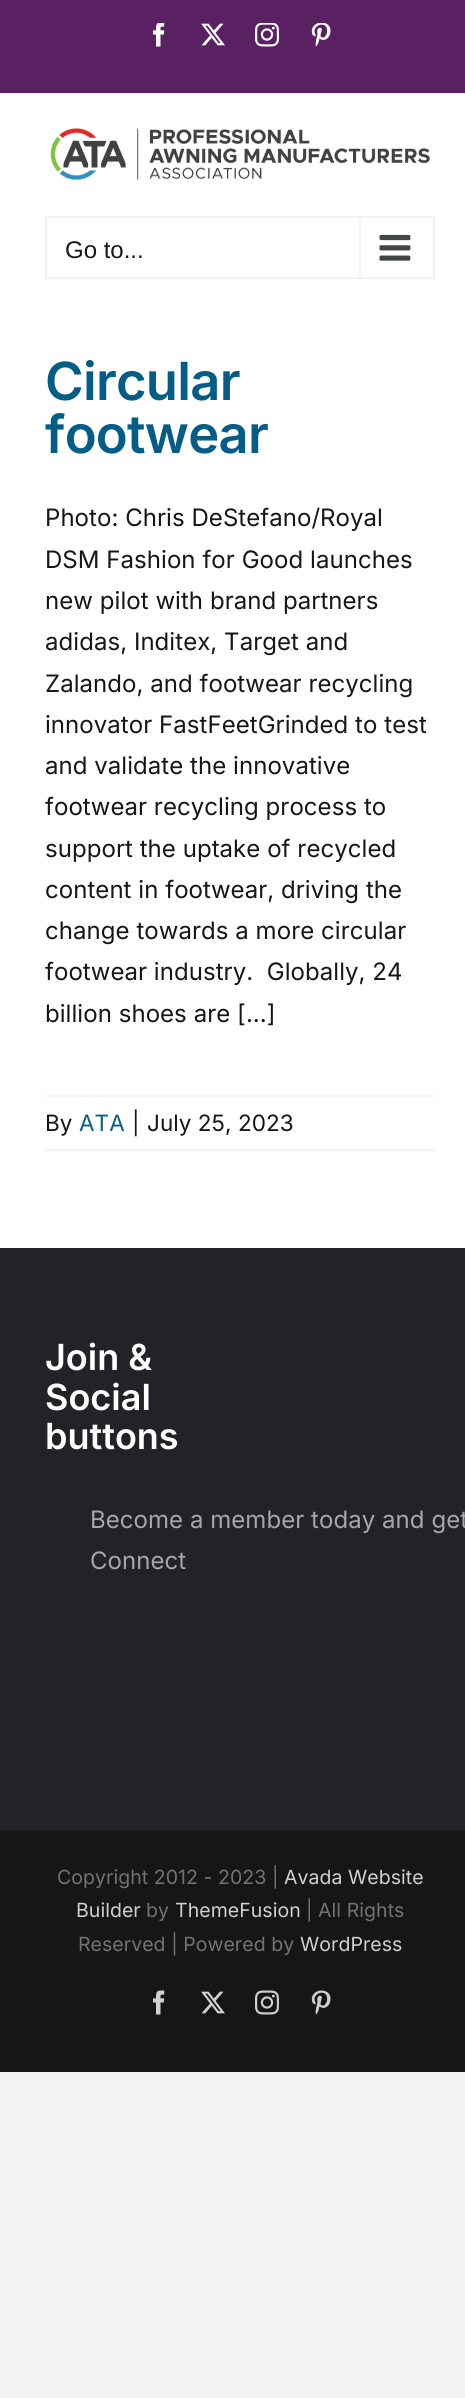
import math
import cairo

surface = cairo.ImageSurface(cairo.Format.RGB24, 465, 2398)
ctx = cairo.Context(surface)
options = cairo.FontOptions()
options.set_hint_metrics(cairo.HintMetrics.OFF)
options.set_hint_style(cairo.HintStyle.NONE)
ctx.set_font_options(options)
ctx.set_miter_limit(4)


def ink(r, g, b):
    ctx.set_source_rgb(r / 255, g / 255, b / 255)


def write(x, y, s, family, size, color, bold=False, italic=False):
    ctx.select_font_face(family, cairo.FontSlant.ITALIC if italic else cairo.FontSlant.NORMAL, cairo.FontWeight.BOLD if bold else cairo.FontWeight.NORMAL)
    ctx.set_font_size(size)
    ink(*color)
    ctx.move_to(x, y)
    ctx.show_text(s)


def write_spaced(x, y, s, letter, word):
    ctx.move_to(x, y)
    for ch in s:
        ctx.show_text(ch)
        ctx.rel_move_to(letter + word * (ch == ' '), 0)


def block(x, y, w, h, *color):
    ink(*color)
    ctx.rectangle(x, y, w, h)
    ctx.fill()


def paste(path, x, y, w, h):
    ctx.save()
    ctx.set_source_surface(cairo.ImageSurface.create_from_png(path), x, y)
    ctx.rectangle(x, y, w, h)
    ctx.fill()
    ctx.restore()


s1 = dict(family="Liberation Sans", size=24, color=(20, 22, 23))
s2 = dict(family="Inter SemiBold", size=36, color=(255, 255, 255))

ink(242, 243, 245)
ctx.paint()
block(0, 93, 465, 1155, 255, 255, 255)
block(0, 0, 465, 93, 89, 33, 98)
paste("pic1.png", 153, 23, 12, 24)
paste("pic2.png", 201, 23, 24, 23)
paste("pic3.png", 255, 23, 24, 24)
paste("pic4.png", 311, 23, 20, 24)
paste("pic5.png", 50, 128, 380, 52)
ctx.rectangle(46, 217, 388, 61)
ink(242, 243, 245)
ctx.stroke()
write(65, 258, "Go to...", **s1)
block(359, 218, 2, 60, 242, 243, 245)
paste("pic6.png", 379, 234, 32, 27)
ctx.select_font_face("Inter SemiBold")
ctx.set_font_size(52.5)
ink(4, 93, 134)
write_spaced(45, 400, "Circular", -0.75, 0)
write_spaced(45, 453, "footwear", -0.75, 0)
ctx.select_font_face("Inter")
ctx.set_font_size(24)
ink(20, 22, 23)
write_spaced(45, 526, "Photo: Chris DeStefano/Royal", 0.05, 0)
write_spaced(45, 568, "DSM Fashion for Good launches", 0.05, 0)
write_spaced(45, 609, "new pilot with brand partners", 0.05, 0)
write_spaced(45, 650, "adidas, Inditex, Target and", 0.05, 0)
write_spaced(45, 692, "Zalando, and footwear recycling", 0.05, 0)
write_spaced(45, 733, "innovator FastFeetGrinded to test", 0.05, 0)
write_spaced(45, 774, "and validate the innovative", 0.05, 0)
write_spaced(45, 815, "footwear recycling process to", 0.05, 0)
write_spaced(45, 857, "support the uptake of recycled", 0.05, 0)
write_spaced(45, 898, "content in footwear, driving the", 0.05, 0)
write_spaced(45, 939, "change towards a more circular", 0.05, 0)
write_spaced(45, 980, "footwear industry.  Globally, 24", 0.05, 0)
write_spaced(45, 1022, "billion shoes are [...]", 0.05, 0)
block(45, 1095, 390, 2, 242, 243, 245)
block(45, 1149, 390, 2, 242, 243, 245)
ctx.set_font_size(22.5)
ink(20, 22, 23)
write_spaced(45, 1131, "By", 0.05, 0)
ink(4, 93, 134)
write_spaced(79, 1131, "ATA", 0.05, 0)
ink(20, 22, 23)
write_spaced(132, 1131, "|", 0.05, 0)
write_spaced(147, 1131, "July 25, 2023", 0.05, 0)
block(0, 1248, 465, 582, 33, 35, 38)
write(45, 1370, "Join &", **s2)
write(45, 1410, "Social", **s2)
write(45, 1449, "buttons", **s2)
ctx.select_font_face("Inter")
ctx.set_font_size(24)
ink(166, 167, 168)
write_spaced(90, 1528, "Become a member today and get", 0.05, 0)
write_spaced(90, 1569, "Connect", 0.05, 0)
block(0, 1830, 465, 242, 20, 22, 23)
ctx.set_font_size(19.5)
ink(114, 115, 116)
write_spaced(57, 1884, "Copyright 2012 - 2023 |", 0.05, 0)
ink(208, 208, 209)
write_spaced(284, 1884, "Avada Website", 0.05, 0)
write_spaced(76, 1917, "Builder", 0.05, 0)
ink(114, 115, 116)
write_spaced(146, 1917, "by", 0.05, 0)
ink(208, 208, 209)
write_spaced(175, 1917, "ThemeFusion", 0.05, 0)
ink(114, 115, 116)
write_spaced(306, 1917, "| All Rights", 0.05, 0)
write_spaced(78, 1951, "Reserved | Powered by", 0.05, 0)
ink(208, 208, 209)
write_spaced(300, 1951, "WordPress", 0.05, 0)
paste("pic7.png", 153, 1990, 12, 25)
paste("pic8.png", 201, 1991, 24, 23)
paste("pic9.png", 255, 1990, 24, 25)
paste("pic10.png", 311, 1990, 20, 25)
surface.write_to_png("screenshot.png")
